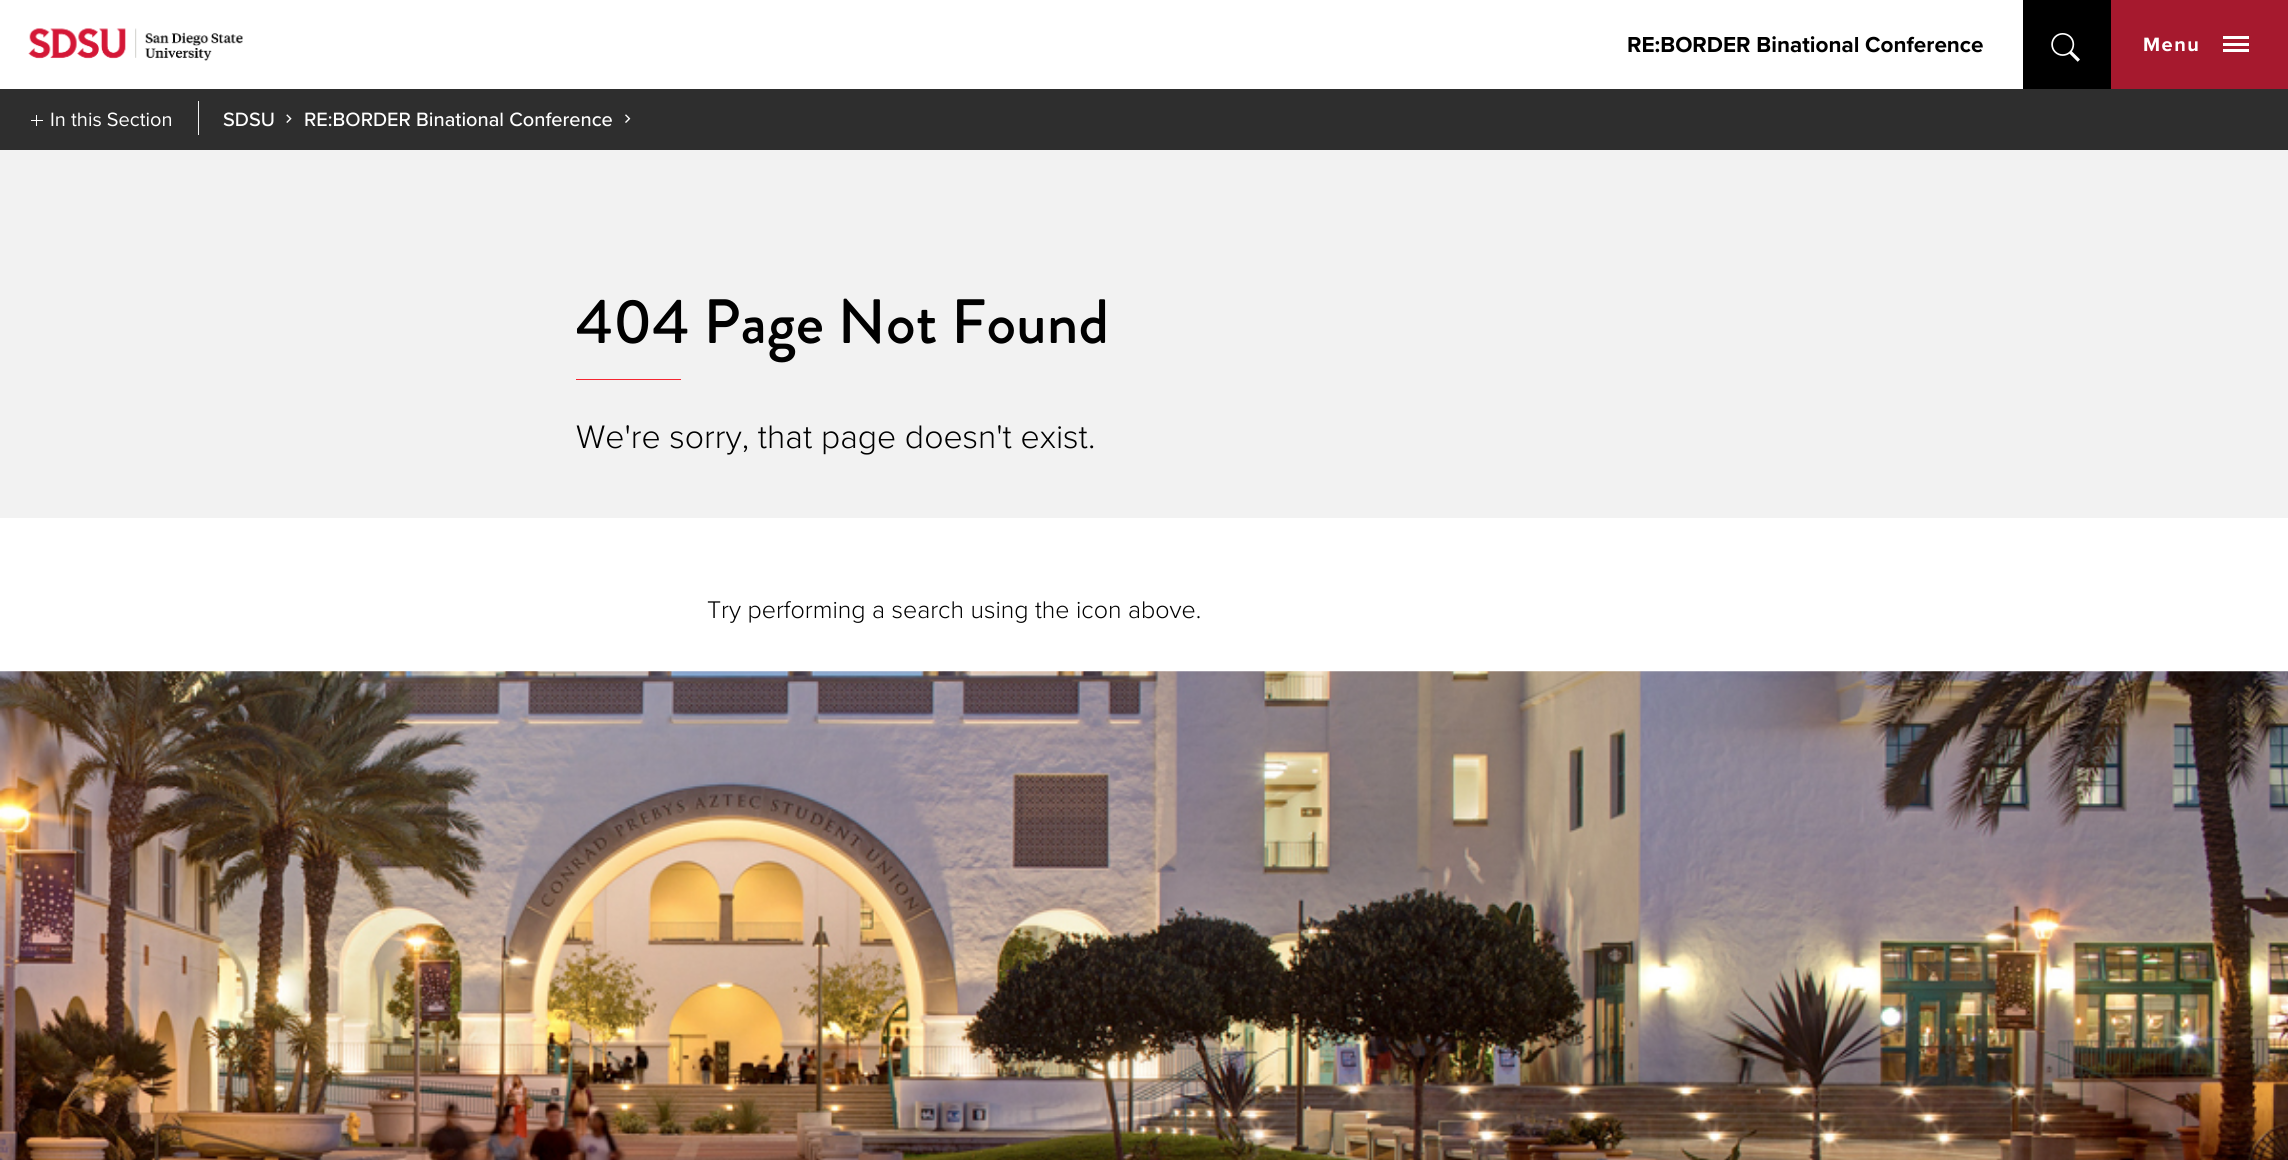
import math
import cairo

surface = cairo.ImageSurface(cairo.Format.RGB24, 2288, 1160)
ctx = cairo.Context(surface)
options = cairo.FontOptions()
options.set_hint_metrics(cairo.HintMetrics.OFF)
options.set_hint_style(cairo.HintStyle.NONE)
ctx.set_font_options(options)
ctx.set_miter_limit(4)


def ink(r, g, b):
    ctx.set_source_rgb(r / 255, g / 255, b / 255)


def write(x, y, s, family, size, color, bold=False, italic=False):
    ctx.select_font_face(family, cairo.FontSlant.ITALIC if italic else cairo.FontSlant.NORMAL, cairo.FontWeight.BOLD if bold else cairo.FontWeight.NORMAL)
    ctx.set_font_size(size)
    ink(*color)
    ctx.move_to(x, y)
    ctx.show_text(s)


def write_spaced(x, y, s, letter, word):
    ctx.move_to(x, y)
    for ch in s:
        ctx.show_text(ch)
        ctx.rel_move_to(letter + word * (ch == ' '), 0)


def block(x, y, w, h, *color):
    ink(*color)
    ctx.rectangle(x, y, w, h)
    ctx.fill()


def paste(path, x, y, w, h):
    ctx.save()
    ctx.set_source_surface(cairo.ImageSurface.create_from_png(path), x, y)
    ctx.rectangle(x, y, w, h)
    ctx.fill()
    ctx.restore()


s1 = dict(family="Proxima Nova", size=22.5, color=(0, 0, 0), bold=True)
s2 = dict(family="Proxima Nova", size=20, color=(255, 255, 255))
s3 = dict(family="Proxima Nova Medium", size=20, color=(255, 255, 255))
s4 = dict(family="Brandon Grotesque Medium", size=62.5, color=(0, 0, 0))
s5 = dict(family="Proxima Nova Light", size=33.75, color=(0, 0, 0))
s6 = dict(family="Proxima Nova Light", size=25, color=(0, 0, 0))

ink(255, 255, 255)
ctx.paint()
paste("pic1.png", 28, 28, 215, 33)
write(1627, 52, "RE:BORDER Binational Conference", **s1)
block(2023, 0, 88, 89, 0, 0, 0)
paste("pic2.png", 2051, 33, 29, 29)
block(2111, 0, 177, 89, 166, 25, 46)
ctx.set_font_size(20)
ink(255, 255, 255)
write_spaced(2143, 51, "Menu", 1.5, 0)
block(2223, 36, 26, 3, 255, 255, 255)
block(2223, 43, 26, 3, 255, 255, 255)
block(2223, 49, 26, 3, 255, 255, 255)
block(0, 89, 2288, 61, 46, 46, 46)
block(31, 120, 12, 1, 255, 255, 255)
block(36, 115, 1, 11, 255, 255, 255)
write(50, 126, "In this Section", **s2)
block(198, 101, 1, 34, 242, 242, 242)
write(223, 126, "SDSU", **s3)
paste("pic3.png", 286, 114, 6, 9)
write(304, 126, "RE:BORDER Binational Conference", **s3)
paste("pic4.png", 625, 114, 6, 9)
block(0, 150, 2288, 368, 242, 242, 242)
write(576, 343, "404 Page Not Found", **s4)
block(576, 379, 105, 1, 246, 37, 48)
write(576, 448, "We're sorry, that page doesn't exist.", **s5)
write(707, 618, "Try performing a search using the icon above.", **s6)
paste("pic5.png", 0, 671, 2288, 489)
surface.write_to_png("screenshot.png")
